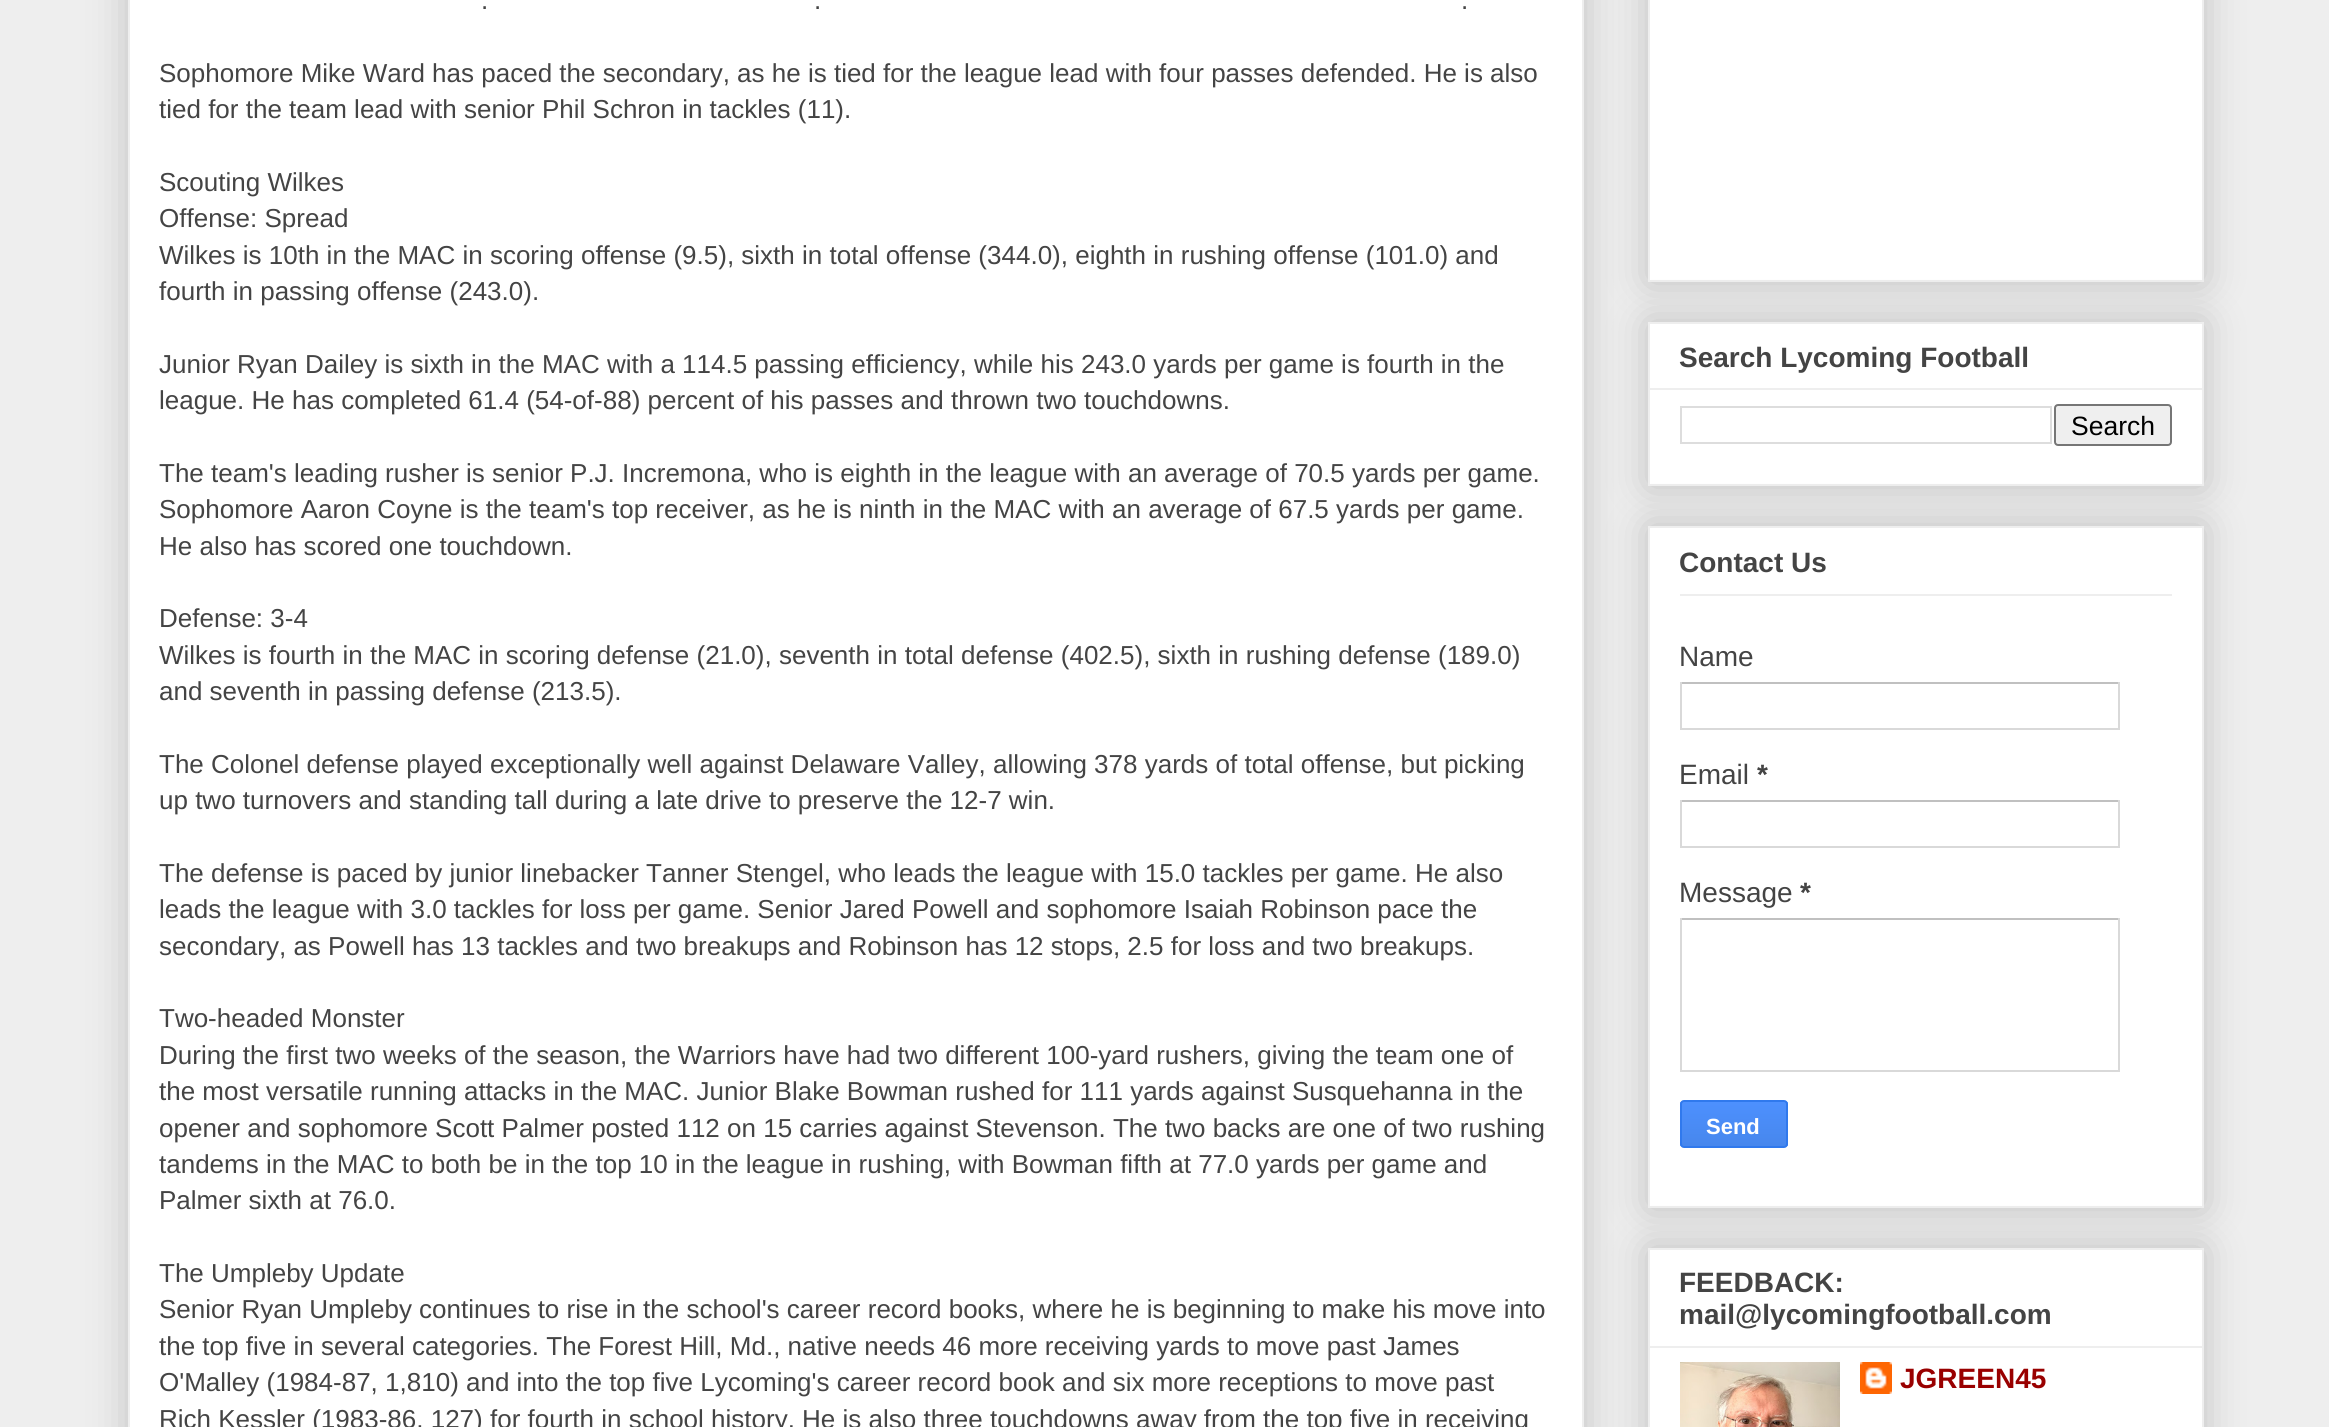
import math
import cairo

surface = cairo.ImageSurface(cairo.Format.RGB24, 2329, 1427)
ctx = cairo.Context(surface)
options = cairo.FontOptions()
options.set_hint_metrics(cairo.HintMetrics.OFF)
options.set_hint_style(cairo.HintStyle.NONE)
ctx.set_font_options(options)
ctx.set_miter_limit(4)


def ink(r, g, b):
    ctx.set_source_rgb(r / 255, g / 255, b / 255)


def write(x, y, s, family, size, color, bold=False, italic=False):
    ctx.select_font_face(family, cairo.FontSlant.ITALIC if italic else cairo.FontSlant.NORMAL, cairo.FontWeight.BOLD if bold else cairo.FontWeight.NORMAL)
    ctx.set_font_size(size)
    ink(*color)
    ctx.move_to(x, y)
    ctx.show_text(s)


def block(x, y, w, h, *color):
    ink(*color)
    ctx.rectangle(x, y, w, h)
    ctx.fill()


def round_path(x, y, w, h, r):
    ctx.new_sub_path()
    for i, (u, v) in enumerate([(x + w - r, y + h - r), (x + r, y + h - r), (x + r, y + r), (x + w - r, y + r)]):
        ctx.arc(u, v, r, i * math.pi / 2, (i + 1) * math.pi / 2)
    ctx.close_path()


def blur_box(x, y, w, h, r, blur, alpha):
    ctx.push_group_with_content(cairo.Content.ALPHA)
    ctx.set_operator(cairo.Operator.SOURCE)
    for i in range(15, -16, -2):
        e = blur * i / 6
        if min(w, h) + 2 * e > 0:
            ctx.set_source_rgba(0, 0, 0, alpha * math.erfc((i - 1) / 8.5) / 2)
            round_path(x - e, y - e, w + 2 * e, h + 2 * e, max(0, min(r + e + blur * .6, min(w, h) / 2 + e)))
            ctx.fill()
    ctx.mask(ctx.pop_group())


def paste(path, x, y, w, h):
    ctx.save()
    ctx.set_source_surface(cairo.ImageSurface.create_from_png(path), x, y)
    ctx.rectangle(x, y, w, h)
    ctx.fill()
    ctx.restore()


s1 = dict(family="Liberation Sans", size=26, color=(68, 68, 68))
s2 = dict(family="Liberation Sans", size=28, color=(68, 68, 68), bold=True)
s3 = dict(family="Liberation Sans", size=26.5, color=(0, 0, 0))
s4 = dict(family="Liberation Sans", size=28, color=(68, 68, 68))
s5 = dict(family="Liberation Sans", size=22, color=(255, 255, 255), bold=True)
s6 = dict(family="Liberation Sans", size=28, color=(153, 0, 0), bold=True)

ink(238, 238, 238)
ctx.paint()
ink(0, 0, 0)
blur_box(128, -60, 1456, 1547, 0, 20, 0.2)
ink(255, 255, 255)
ctx.rectangle(129, -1, 1454, 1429)
ctx.fill_preserve()
ink(238, 238, 238)
ctx.stroke()
write(481, 9, ".", **s1)
write(814, 9, ".", **s1)
write(1461, 9, ".", **s1)
write(159, 82, "Sophomore Mike Ward has paced the secondary, as he is tied for the league lead with four passes defended. He is also", **s1)
write(159, 118, "tied for the team lead with senior Phil Schron in tackles (11).", **s1)
write(159, 191, "Scouting Wilkes", **s1)
write(159, 227, "Offense: Spread", **s1)
write(159, 264, "Wilkes is 10th in the MAC in scoring offense (9.5), sixth in total offense (344.0), eighth in rushing offense (101.0) and", **s1)
write(159, 300, "fourth in passing offense (243.0).", **s1)
write(159, 373, "Junior Ryan Dailey is sixth in the MAC with a 114.5 passing efficiency, while his 243.0 yards per game is fourth in the", **s1)
write(159, 409, "league. He has completed 61.4 (54-of-88) percent of his passes and thrown two touchdowns.", **s1)
write(159, 482, "The team's leading rusher is senior P.J. Incremona, who is eighth in the league with an average of 70.5 yards per game.", **s1)
write(159, 518, "Sophomore Aaron Coyne is the team's top receiver, as he is ninth in the MAC with an average of 67.5 yards per game.", **s1)
write(159, 555, "He also has scored one touchdown.", **s1)
write(159, 627, "Defense: 3-4", **s1)
write(159, 664, "Wilkes is fourth in the MAC in scoring defense (21.0), seventh in total defense (402.5), sixth in rushing defense (189.0)", **s1)
write(159, 700, "and seventh in passing defense (213.5).", **s1)
write(159, 773, "The Colonel defense played exceptionally well against Delaware Valley, allowing 378 yards of total offense, but picking", **s1)
write(159, 809, "up two turnovers and standing tall during a late drive to preserve the 12-7 win.", **s1)
write(159, 882, "The defense is paced by junior linebacker Tanner Stengel, who leads the league with 15.0 tackles per game. He also", **s1)
write(159, 918, "leads the league with 3.0 tackles for loss per game. Senior Jared Powell and sophomore Isaiah Robinson pace the", **s1)
write(159, 955, "secondary, as Powell has 13 tackles and two breakups and Robinson has 12 stops, 2.5 for loss and two breakups.", **s1)
write(159, 1027, "Two-headed Monster", **s1)
write(159, 1064, "During the first two weeks of the season, the Warriors have had two different 100-yard rushers, giving the team one of", **s1)
write(159, 1100, "the most versatile running attacks in the MAC. Junior Blake Bowman rushed for 111 yards against Susquehanna in the", **s1)
write(159, 1137, "opener and sophomore Scott Palmer posted 112 on 15 carries against Stevenson. The two backs are one of two rushing", **s1)
write(159, 1173, "tandems in the MAC to both be in the top 10 in the league in rushing, with Bowman fifth at 77.0 yards per game and", **s1)
write(159, 1209, "Palmer sixth at 76.0.", **s1)
write(159, 1282, "The Umpleby Update", **s1)
write(159, 1318, "Senior Ryan Umpleby continues to rise in the school's career record books, where he is beginning to make his move into", **s1)
write(159, 1355, "the top five in several categories. The Forest Hill, Md., native needs 46 more receiving yards to move past James", **s1)
write(159, 1391, "O'Malley (1984-87, 1,810) and into the top five Lycoming's career record book and six more receptions to move past", **s1)
write(159, 1428, "Rich Kessler (1983-86, 127) for fourth in school history. He is also three touchdowns away from the top five in receiving", **s1)
ink(0, 0, 0)
blur_box(1648, -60, 556, 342, 0, 20, 0.2)
ink(255, 255, 255)
ctx.rectangle(1649, -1, 554, 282)
ctx.fill_preserve()
ink(238, 238, 238)
ctx.stroke()
ink(0, 0, 0)
blur_box(1648, 322, 556, 164, 0, 20, 0.2)
ink(255, 255, 255)
ctx.rectangle(1649, 323, 554, 162)
ctx.fill_preserve()
ink(238, 238, 238)
ctx.stroke()
write(1679, 367, "Search Lycoming Football", **s2)
block(1650, 388, 552, 2, 238, 238, 238)
ctx.rectangle(1681, 407, 370, 36)
ink(221, 221, 221)
ctx.stroke()
ink(239, 239, 239)
round_path(2055, 405, 116, 40, 3)
ctx.fill_preserve()
ink(118, 118, 118)
ctx.stroke()
write(2071, 435, "Search", **s3)
ink(0, 0, 0)
blur_box(1648, 526, 556, 682, 0, 20, 0.2)
ink(255, 255, 255)
ctx.rectangle(1649, 527, 554, 680)
ctx.fill_preserve()
ink(238, 238, 238)
ctx.stroke()
write(1679, 572, "Contact Us", **s2)
block(1680, 594, 492, 2, 238, 238, 238)
write(1679, 666, "Name", **s4)
block(1680, 682, 440, 2, 192, 192, 192)
block(2118, 682, 2, 48, 217, 217, 217)
block(1680, 728, 440, 2, 217, 217, 217)
block(1680, 682, 2, 48, 217, 217, 217)
write(1679, 784, "Email", **s4)
write(1757, 784, "*", **s2)
block(1680, 800, 440, 2, 192, 192, 192)
block(2118, 800, 2, 48, 217, 217, 217)
block(1680, 846, 440, 2, 217, 217, 217)
block(1680, 800, 2, 48, 217, 217, 217)
write(1679, 902, "Message", **s4)
write(1800, 902, "*", **s2)
block(1680, 918, 440, 2, 192, 192, 192)
block(2118, 918, 2, 154, 217, 217, 217)
block(1680, 1070, 440, 2, 217, 217, 217)
block(1680, 918, 2, 154, 217, 217, 217)
ctx.save()
round_path(1680, 1100, 108, 48, 4)
ctx.clip()
gradient = cairo.LinearGradient(1734, 1102, 1734, 1146)
gradient.add_color_stop_rgba(0, 0.302, 0.565, 0.996, 1)
gradient.add_color_stop_rgba(1, 0.278, 0.529, 0.929, 1)
ctx.set_source(gradient)
ctx.rectangle(1680, 1102, 108, 44)
ctx.fill()
ctx.restore()
round_path(1681, 1101, 106, 46, 3)
ink(48, 121, 237)
ctx.stroke()
write(1706, 1134, "Send", **s5)
ink(0, 0, 0)
blur_box(1648, 1248, 556, 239, 0, 20, 0.2)
ink(255, 255, 255)
ctx.rectangle(1649, 1249, 554, 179)
ctx.fill_preserve()
ink(238, 238, 238)
ctx.stroke()
write(1679, 1292, "FEEDBACK:", **s2)
write(1679, 1324, "mail@lycomingfootball.com", **s2)
block(1650, 1346, 552, 2, 238, 238, 238)
paste("pic1.png", 1680, 1362, 160, 65)
paste("pic2.png", 1860, 1362, 32, 32)
write(1900, 1388, "JGREEN45", **s6)
surface.write_to_png("screenshot.png")
